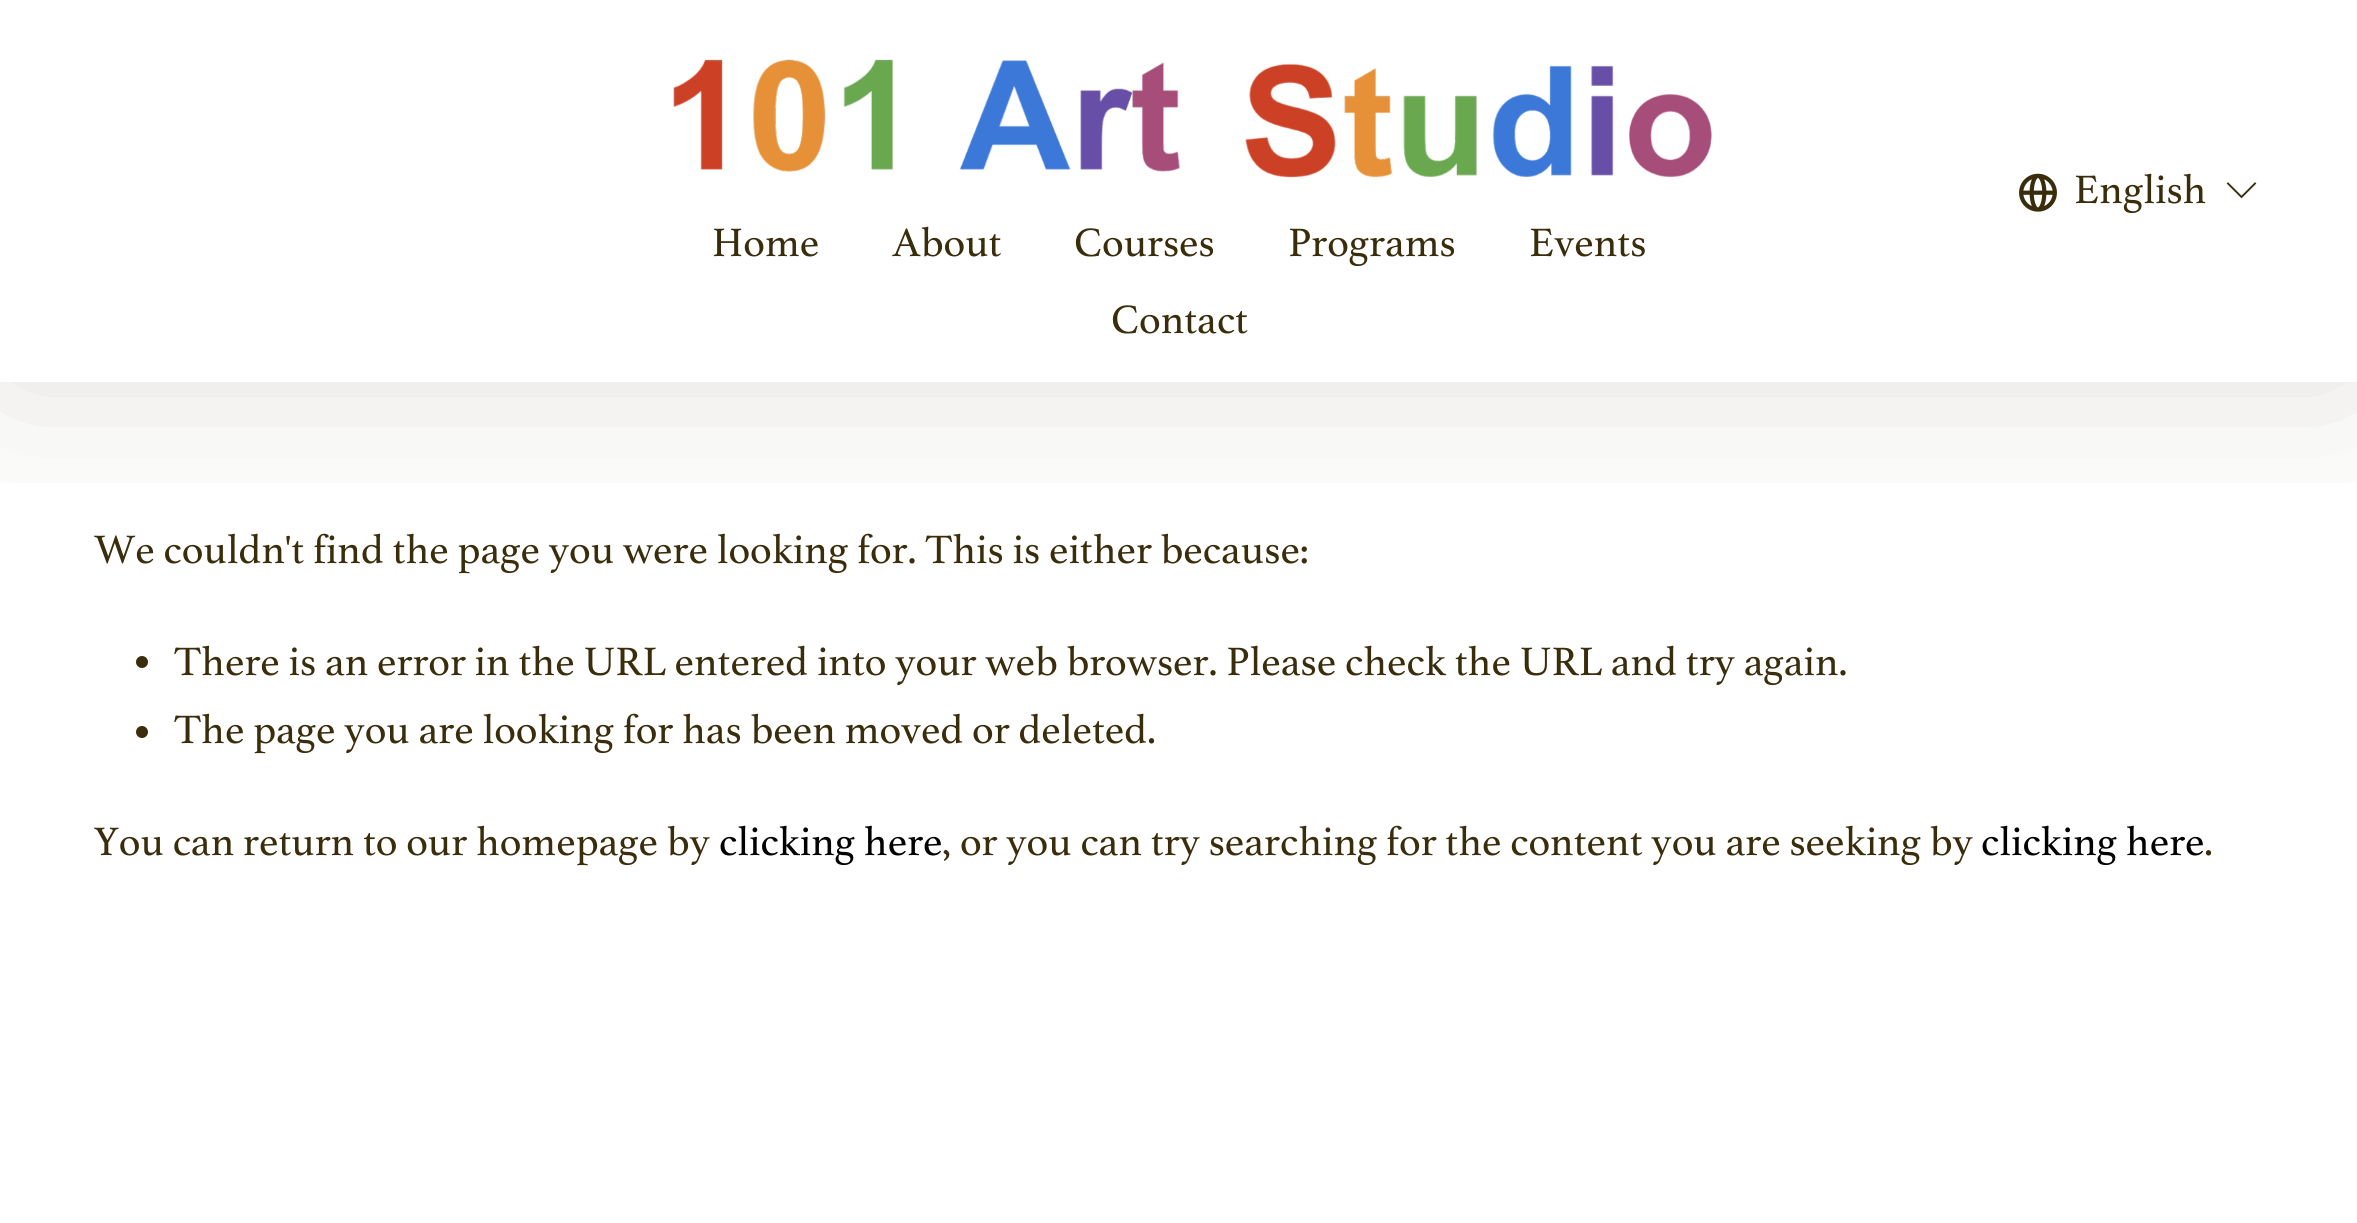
import math
import cairo

surface = cairo.ImageSurface(cairo.Format.RGB24, 2357, 1223)
ctx = cairo.Context(surface)
options = cairo.FontOptions()
options.set_hint_metrics(cairo.HintMetrics.OFF)
options.set_hint_style(cairo.HintStyle.NONE)
ctx.set_font_options(options)
ctx.set_miter_limit(4)


def ink(r, g, b):
    ctx.set_source_rgb(r / 255, g / 255, b / 255)


def write(x, y, s, family, size, color, bold=False, italic=False):
    ctx.select_font_face(family, cairo.FontSlant.ITALIC if italic else cairo.FontSlant.NORMAL, cairo.FontWeight.BOLD if bold else cairo.FontWeight.NORMAL)
    ctx.set_font_size(size)
    ink(*color)
    ctx.move_to(x, y)
    ctx.show_text(s)


def round_path(x, y, w, h, r):
    ctx.new_sub_path()
    for i, (u, v) in enumerate([(x + w - r, y + h - r), (x + r, y + h - r), (x + r, y + r), (x + w - r, y + r)]):
        ctx.arc(u, v, r, i * math.pi / 2, (i + 1) * math.pi / 2)
    ctx.close_path()


def blur_box(x, y, w, h, r, blur, alpha):
    ctx.push_group_with_content(cairo.Content.ALPHA)
    ctx.set_operator(cairo.Operator.SOURCE)
    for i in range(15, -16, -2):
        e = blur * i / 6
        if min(w, h) + 2 * e > 0:
            ctx.set_source_rgba(0, 0, 0, alpha * math.erfc((i - 1) / 8.5) / 2)
            round_path(x - e, y - e, w + 2 * e, h + 2 * e, max(0, min(r + e + blur * .6, min(w, h) / 2 + e)))
            ctx.fill()
    ctx.mask(ctx.pop_group())


def paste(path, x, y, w, h):
    ctx.save()
    ctx.set_source_surface(cairo.ImageSurface.create_from_png(path), x, y)
    ctx.rectangle(x, y, w, h)
    ctx.fill()
    ctx.restore()


s1 = dict(family="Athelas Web", size=42.85, color=(58, 45, 11))
s2 = dict(family="Athelas Web", size=42.85, color=(0, 0, 0))

ink(255, 255, 255)
ctx.paint()
ctx.save()
ctx.rectangle(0, 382, 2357, 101)
ctx.clip()
ink(58, 45, 11)
blur_box(0, 0, 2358, 382, 0, 91, 0.15)
ctx.restore()
paste("pic1.png", 2019, 173, 38, 39)
write(2074, 203, "English", **s1)
ctx.new_path()
ctx.move_to(2255, 183.5)
ctx.line_to(2241.5, 197)
ctx.line_to(2228, 183.5)
ctx.set_line_width(1.9)
ctx.set_line_cap(cairo.LineCap.SQUARE)
ctx.stroke()
paste("pic2.png", 673, 59, 1039, 119)
write(712, 256, "Home", **s1)
write(892, 256, "About", **s1)
write(1074, 256, "Courses", **s1)
write(1288, 256, "Programs", **s1)
write(1529, 256, "Events", **s1)
write(1111, 333, "Contact", **s1)
write(94, 563, "We couldn't find the page you were looking for. This is either because:", **s1)
ctx.new_path()
ctx.arc(142, 662, 6, 0, 2 * math.pi)
ctx.fill()
write(174, 675, "There is an error in the URL entered into your web browser. Please check the URL and try again.", **s1)
ctx.new_path()
ctx.arc(142, 732, 6, 0, 2 * math.pi)
ctx.fill()
write(174, 743, "The page you are looking for has been moved or deleted.", **s1)
write(94, 855, "You can return to our homepage by", **s1)
write(719, 855, "clicking here", **s2)
write(942, 855, ", or you can try searching for the content you are seeking by", **s1)
write(1981, 855, "clicking here", **s2)
write(2204, 855, ".", **s1)
surface.write_to_png("screenshot.png")
